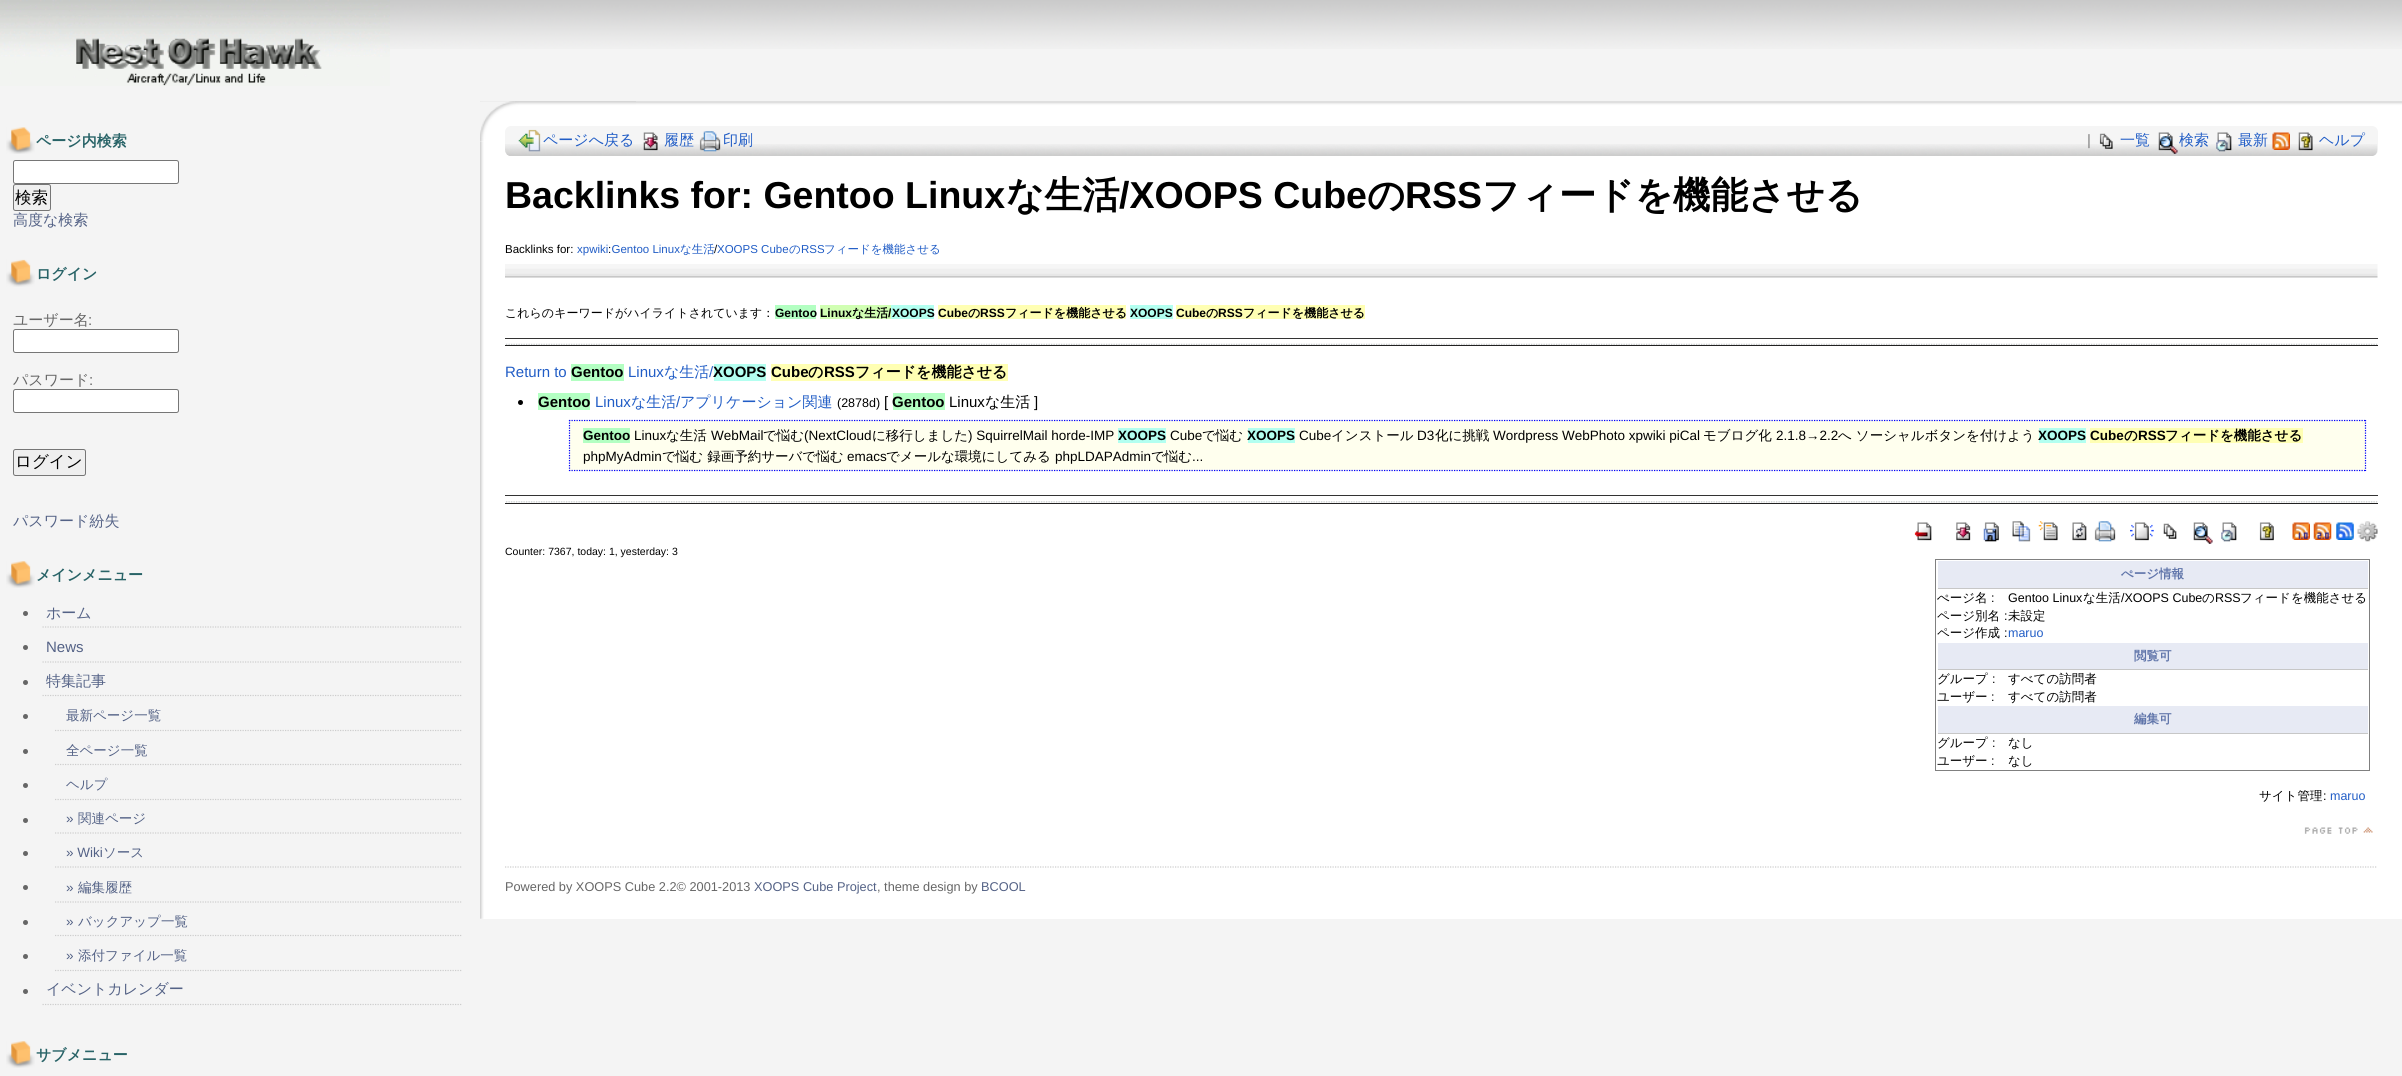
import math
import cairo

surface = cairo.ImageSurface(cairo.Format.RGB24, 2402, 1076)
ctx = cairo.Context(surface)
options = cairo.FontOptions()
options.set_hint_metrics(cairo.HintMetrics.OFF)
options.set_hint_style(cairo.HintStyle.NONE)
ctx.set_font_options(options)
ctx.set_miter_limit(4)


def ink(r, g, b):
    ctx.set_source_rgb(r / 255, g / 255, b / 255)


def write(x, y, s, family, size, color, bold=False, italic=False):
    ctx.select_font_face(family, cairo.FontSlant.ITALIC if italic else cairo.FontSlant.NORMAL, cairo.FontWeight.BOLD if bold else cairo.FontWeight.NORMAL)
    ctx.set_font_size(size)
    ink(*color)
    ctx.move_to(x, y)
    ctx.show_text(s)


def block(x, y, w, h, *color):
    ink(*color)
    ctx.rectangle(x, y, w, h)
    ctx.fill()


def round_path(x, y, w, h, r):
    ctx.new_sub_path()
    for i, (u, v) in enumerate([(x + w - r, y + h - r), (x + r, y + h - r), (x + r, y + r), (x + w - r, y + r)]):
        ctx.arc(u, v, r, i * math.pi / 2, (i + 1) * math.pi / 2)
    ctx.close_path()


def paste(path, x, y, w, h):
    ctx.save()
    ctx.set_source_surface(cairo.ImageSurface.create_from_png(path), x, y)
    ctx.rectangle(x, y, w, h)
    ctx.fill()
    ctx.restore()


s1 = dict(family="WenQuanYi Zen Hei", size=15, color=(40, 99, 103), bold=True)
s2 = dict(family="WenQuanYi Zen Hei Medium", size=16.5, color=(0, 0, 0))
s3 = dict(family="WenQuanYi Zen Hei Medium", size=15, color=(84, 98, 134))
s4 = dict(family="WenQuanYi Zen Hei Medium", size=15, color=(102, 102, 102))
s5 = dict(family="Liberation Sans", size=15, color=(102, 102, 102))
s6 = dict(family="Liberation Sans", size=15, color=(84, 98, 134))
s7 = dict(family="WenQuanYi Zen Hei Medium", size=13.5, color=(84, 98, 134))
s8 = dict(family="Liberation Sans", size=13.5, color=(84, 98, 134))
s9 = dict(family="WenQuanYi Zen Hei Medium", size=15, color=(33, 93, 198))
s10 = dict(family="Liberation Sans", size=15, color=(128, 128, 128))
s11 = dict(family="Liberation Sans", size=37.5, color=(0, 0, 0), bold=True)
s12 = dict(family="WenQuanYi Zen Hei", size=37.5, color=(0, 0, 0), bold=True)
s13 = dict(family="Liberation Sans", size=11.5, color=(0, 0, 0))
s14 = dict(family="Liberation Sans", size=11.5, color=(33, 93, 198))
s15 = dict(family="WenQuanYi Zen Hei Medium", size=11.5, color=(33, 93, 198))
s16 = dict(family="WenQuanYi Zen Hei Medium", size=12, color=(0, 0, 0))
s17 = dict(family="Liberation Sans", size=12, color=(0, 0, 0), bold=True)
s18 = dict(family="WenQuanYi Zen Hei", size=12, color=(0, 0, 0), bold=True)
s19 = dict(family="Liberation Sans", size=15, color=(33, 93, 198))
s20 = dict(family="Liberation Sans", size=15, color=(0, 0, 0), bold=True)
s21 = dict(family="WenQuanYi Zen Hei", size=15, color=(0, 0, 0), bold=True)
s22 = dict(family="Liberation Sans", size=12.5, color=(0, 0, 0))
s23 = dict(family="Liberation Sans", size=15, color=(0, 0, 0))
s24 = dict(family="WenQuanYi Zen Hei Medium", size=15, color=(0, 0, 0))
s25 = dict(family="Liberation Sans", size=13.5, color=(0, 0, 0), bold=True)
s26 = dict(family="Liberation Sans", size=13.5, color=(0, 0, 0))
s27 = dict(family="WenQuanYi Zen Hei Medium", size=13.5, color=(0, 0, 0))
s28 = dict(family="WenQuanYi Zen Hei", size=13.5, color=(0, 0, 0), bold=True)
s29 = dict(family="Liberation Sans", size=10.5, color=(0, 0, 0))
s30 = dict(family="WenQuanYi Zen Hei", size=12.5, color=(96, 117, 170), bold=True)
s31 = dict(family="WenQuanYi Zen Hei Medium", size=12.5, color=(0, 0, 0))
s32 = dict(family="Liberation Sans", size=12.5, color=(33, 93, 198))
s33 = dict(family="Liberation Sans", size=12.75, color=(102, 102, 102))
s34 = dict(family="Liberation Sans", size=12.75, color=(84, 98, 134))

ink(244, 244, 244)
ctx.paint()
paste("pic1.png", 390, 0, 2012, 49)
paste("pic2.png", 0, 0, 390, 86)
paste("pic3.png", 6, 127, 29, 27)
write(36, 146, "ページ内検索", **s1)
ink(255, 255, 255)
round_path(13.5, 160.5, 165, 23, 2)
ctx.fill_preserve()
ink(118, 118, 118)
ctx.set_line_width(1)
ctx.stroke()
ink(239, 239, 239)
round_path(13.5, 184.5, 37, 26, 2)
ctx.fill_preserve()
ink(118, 118, 118)
ctx.stroke()
write(15, 203, "検索", **s2)
write(13, 225, "高度な検索", **s3)
paste("pic4.png", 6, 259, 29, 28)
write(36, 279, "ログイン", **s1)
write(13, 325, "ユーザー名", **s4)
write(88, 325, ":", **s5)
ink(255, 255, 255)
round_path(13.5, 329.5, 165, 23, 2)
ctx.fill_preserve()
ink(118, 118, 118)
ctx.stroke()
write(13, 385, "パスワード", **s4)
write(89, 385, ":", **s5)
ink(255, 255, 255)
round_path(13.5, 389.5, 165, 23, 2)
ctx.fill_preserve()
ink(118, 118, 118)
ctx.stroke()
ink(239, 239, 239)
round_path(13.5, 449.5, 72, 26, 2)
ctx.fill_preserve()
ink(118, 118, 118)
ctx.stroke()
write(15, 467, "ログイン", **s2)
write(13, 526, "パスワード紛失", **s3)
paste("pic5.png", 6, 561, 29, 27)
write(36, 580, "メインメニュー", **s1)
ink(102, 102, 102)
ctx.new_path()
ctx.arc(25.5, 613.5, 2.5, 0, 2 * math.pi)
ctx.fill()
ctx.new_path()
ctx.move_to(42.5, 627)
ctx.line_to(462.5, 627)
ink(205, 205, 205)
ctx.set_line_width(1.2)
ctx.set_dash([1.25, 1.25])
ctx.stroke()
write(46, 618, "ホーム", **s3)
ink(102, 102, 102)
ctx.new_path()
ctx.arc(25.5, 647.5, 2.5, 0, 2 * math.pi)
ctx.fill()
ctx.new_path()
ctx.move_to(42.5, 662)
ctx.line_to(462.5, 662)
ink(205, 205, 205)
ctx.stroke()
write(46, 652, "News", **s6)
ink(102, 102, 102)
ctx.new_path()
ctx.arc(25.5, 682.5, 2.5, 0, 2 * math.pi)
ctx.fill()
ctx.new_path()
ctx.move_to(42.5, 695.5)
ctx.line_to(462.5, 695.5)
ink(205, 205, 205)
ctx.stroke()
write(46, 686, "特集記事", **s3)
ink(102, 102, 102)
ctx.new_path()
ctx.arc(25.5, 716.5, 2.5, 0, 2 * math.pi)
ctx.fill()
ctx.new_path()
ctx.move_to(55, 730.5)
ctx.line_to(462.5, 730.5)
ink(205, 205, 205)
ctx.stroke()
write(66, 720, "最新ページ一覧", **s7)
ink(102, 102, 102)
ctx.new_path()
ctx.arc(25.5, 751.5, 2.5, 0, 2 * math.pi)
ctx.fill()
ctx.new_path()
ctx.move_to(55, 764.5)
ctx.line_to(462.5, 764.5)
ink(205, 205, 205)
ctx.stroke()
write(66, 755, "全ページ一覧", **s7)
ink(102, 102, 102)
ctx.new_path()
ctx.arc(25.5, 785.5, 2.5, 0, 2 * math.pi)
ctx.fill()
ctx.new_path()
ctx.move_to(55, 799.5)
ctx.line_to(462.5, 799.5)
ink(205, 205, 205)
ctx.stroke()
write(66, 789, "ヘルプ", **s7)
ink(102, 102, 102)
ctx.new_path()
ctx.arc(25.5, 820.5, 2.5, 0, 2 * math.pi)
ctx.fill()
ctx.new_path()
ctx.move_to(55, 833)
ctx.line_to(462.5, 833)
ink(205, 205, 205)
ctx.stroke()
write(66, 823, "»", **s8)
write(78, 823, "関連ページ", **s7)
ink(102, 102, 102)
ctx.new_path()
ctx.arc(25.5, 853.5, 2.5, 0, 2 * math.pi)
ctx.fill()
ctx.new_path()
ctx.move_to(55, 867)
ctx.line_to(462.5, 867)
ink(205, 205, 205)
ctx.stroke()
write(66, 857, "» Wiki", **s8)
write(103, 857, "ソース", **s7)
ink(102, 102, 102)
ctx.new_path()
ctx.arc(25.5, 887.5, 2.5, 0, 2 * math.pi)
ctx.fill()
ctx.new_path()
ctx.move_to(55, 902)
ctx.line_to(462.5, 902)
ink(205, 205, 205)
ctx.stroke()
write(66, 892, "»", **s8)
write(78, 892, "編集履歴", **s7)
ink(102, 102, 102)
ctx.new_path()
ctx.arc(25.5, 922.5, 2.5, 0, 2 * math.pi)
ctx.fill()
ctx.new_path()
ctx.move_to(55, 935.5)
ctx.line_to(462.5, 935.5)
ink(205, 205, 205)
ctx.stroke()
write(66, 926, "»", **s8)
write(78, 926, "バックアップ一覧", **s7)
ink(102, 102, 102)
ctx.new_path()
ctx.arc(25.5, 956.5, 2.5, 0, 2 * math.pi)
ctx.fill()
ctx.new_path()
ctx.move_to(55, 970.5)
ctx.line_to(462.5, 970.5)
ink(205, 205, 205)
ctx.stroke()
write(66, 960, "»", **s8)
write(78, 960, "添付ファイル一覧", **s7)
ink(102, 102, 102)
ctx.new_path()
ctx.arc(25.5, 991.5, 2.5, 0, 2 * math.pi)
ctx.fill()
ctx.new_path()
ctx.move_to(42.5, 1004.5)
ctx.line_to(462.5, 1004.5)
ink(205, 205, 205)
ctx.stroke()
write(46, 994, "イベントカレンダー", **s3)
paste("pic5.png", 6, 1041, 29, 27)
write(36, 1060, "サブメニュー", **s1)
block(480, 101, 1922, 818, 255, 255, 255)
paste("pic6.png", 480, 101, 4, 818)
paste("pic7.png", 480, 101, 1922, 41)
paste("pic8.png", 480, 101, 156, 40)
ink(245, 245, 245)
round_path(505, 126, 1873, 30, 6)
ctx.fill()
paste("pic9.png", 505, 144, 1873, 12)
paste("pic10.png", 518, 129, 23, 23)
write(543, 145, "ページへ戻る", **s9)
paste("pic11.png", 643, 132, 15, 19)
write(664, 145, "履歴", **s9)
paste("pic12.png", 699, 131, 22, 21)
write(723, 145, "印刷", **s9)
write(2087, 145, "|", **s10)
paste("pic13.png", 2099, 133, 14, 16)
write(2120, 145, "一覧", **s9)
paste("pic14.png", 2158, 132, 20, 22)
write(2179, 145, "検索", **s9)
paste("pic15.png", 2216, 132, 16, 20)
write(2238, 145, "最新", **s9)
paste("pic16.png", 2272, 132, 18, 18)
paste("pic17.png", 2298, 132, 15, 19)
write(2319, 145, "ヘルプ", **s9)
write(505, 208, "Backlinks for: Gentoo Linux", **s11)
write(1006, 208, "な生活", **s12)
write(1119, 208, "/XOOPS Cube", **s11)
write(1367, 208, "の", **s12)
write(1405, 208, "RSS", **s11)
write(1482, 208, "フィードを機能させる", **s12)
write(505, 253, "Backlinks for:", **s13)
write(577, 253, "xpwiki Gentoo Linux", **s14)
write(680, 253, "な生活", **s15)
write(714, 253, "/", **s13)
write(717, 253, "XOOPS Cube", **s14)
write(789, 253, "の", **s15)
write(801, 253, "RSS", **s14)
write(824, 253, "フィードを機能させる", **s15)
write(608, 253, ":", **s13)
paste("pic18.png", 505, 264, 1873, 14)
write(505, 317, "これらのキーワードがハイライトされています：", **s16)
block(775, 305, 41, 14, 179, 255, 194)
write(775, 317, "Gentoo", **s17)
block(820, 305, 71, 14, 209, 255, 179)
write(820, 317, "Linux", **s17)
write(852, 317, "な生活", **s18)
write(888, 317, "/", **s17)
block(891, 305, 43, 14, 179, 255, 240)
write(892, 317, "XOOPS", **s17)
block(938, 305, 188, 14, 255, 255, 179)
write(938, 317, "Cube", **s17)
write(968, 317, "の", **s18)
write(980, 317, "RSS", **s17)
write(1005, 317, "フィードを機能させる", **s18)
block(1130, 305, 43, 14, 179, 255, 240)
write(1130, 317, "XOOPS", **s17)
block(1176, 305, 189, 14, 255, 255, 179)
write(1176, 317, "Cube", **s17)
write(1206, 317, "の", **s18)
write(1218, 317, "RSS", **s17)
write(1243, 317, "フィードを機能させる", **s18)
paste("pic19.png", 505, 343, 1873, 2)
block(505, 338, 1873, 1, 51, 51, 51)
block(505, 345, 1873, 1, 34, 34, 34)
write(505, 377, "Return to", **s19)
block(571, 364, 53, 17, 179, 255, 194)
write(571, 377, "Gentoo", **s20)
write(628, 377, "Linux", **s19)
write(664, 377, "な生活", **s9)
write(709, 377, "/", **s19)
block(714, 364, 52, 17, 179, 255, 240)
write(713, 377, "XOOPS", **s20)
block(771, 364, 237, 17, 255, 255, 179)
write(771, 377, "Cube", **s20)
write(808, 377, "の", **s21)
write(824, 377, "RSS", **s20)
write(855, 377, "フィードを機能させる", **s21)
ctx.new_path()
ctx.arc(520.5, 402.5, 2.5, 0, 2 * math.pi)
ctx.fill()
block(538, 393, 52, 17, 179, 255, 194)
write(538, 407, "Gentoo", **s20)
write(595, 407, "Linux", **s19)
write(631, 407, "な生活", **s9)
write(676, 407, "/", **s19)
write(680, 407, "アプリケーション関連", **s9)
write(837, 407, "(2878d)", **s22)
write(884, 407, "[", **s23)
block(893, 393, 52, 17, 179, 255, 194)
write(892, 407, "Gentoo", **s20)
write(949, 407, "Linux", **s23)
write(985, 407, "な生活", **s24)
write(1034, 407, "]", **s23)
block(569, 420, 1797, 51, 255, 255, 238)
ctx.new_path()
ctx.move_to(569, 420.5)
ctx.line_to(2366, 420.5)
ink(0, 0, 255)
ctx.stroke()
ctx.new_path()
ctx.move_to(2365.5, 420)
ctx.line_to(2365.5, 471)
ctx.stroke()
ctx.new_path()
ctx.move_to(569, 470.5)
ctx.line_to(2366, 470.5)
ctx.stroke()
ctx.new_path()
ctx.move_to(569.5, 420)
ctx.line_to(569.5, 471)
ctx.stroke()
block(583, 428, 47, 15, 179, 255, 194)
write(583, 440, "Gentoo", **s25)
write(634, 440, "Linux", **s26)
write(666, 440, "な生活", **s27)
write(711, 440, "WebMail", **s26)
write(763, 440, "で悩む", **s27)
write(804, 440, "(NextCloud", **s26)
write(872, 440, "に移行しました", **s27)
write(968, 440, ") SquirrelMail horde-IMP", **s26)
block(1118, 428, 48, 15, 179, 255, 240)
write(1118, 440, "XOOPS", **s25)
write(1170, 440, "Cube", **s26)
write(1202, 440, "で悩む", **s27)
block(1248, 428, 47, 15, 179, 255, 240)
write(1247, 440, "XOOPS", **s25)
write(1299, 440, "Cube", **s26)
write(1331, 440, "インストール", **s27)
write(1417, 440, "D3", **s26)
write(1435, 440, "化に挑戦", **s27)
write(1493, 440, "Wordpress WebPhoto xpwiki piCal", **s26)
write(1703, 440, "モブログ化", **s27)
write(1776, 440, "2.1.8→2.2", **s26)
write(1838, 440, "へ ソーシャルボタンを付けよう", **s27)
block(2039, 428, 47, 15, 179, 255, 240)
write(2038, 440, "XOOPS", **s25)
block(2090, 428, 213, 15, 255, 255, 179)
write(2090, 440, "Cube", **s25)
write(2124, 440, "の", **s28)
write(2138, 440, "RSS", **s25)
write(2165, 440, "フィードを機能させる", **s28)
write(583, 461, "phpMyAdmin", **s26)
write(662, 461, "で悩む 録画予約サーバで悩む", **s27)
write(847, 461, "emacs", **s26)
write(886, 461, "でメールな環境にしてみる", **s27)
write(1055, 461, "phpLDAPAdmin", **s26)
write(1151, 461, "で悩む", **s27)
write(1192, 461, "...", **s26)
paste("pic20.png", 505, 501, 1873, 2)
block(505, 495, 1873, 1, 51, 51, 51)
block(505, 503, 1873, 1, 34, 34, 34)
paste("pic21.png", 1914, 522, 18, 19)
paste("pic22.png", 1956, 522, 15, 19)
paste("pic23.png", 1983, 522, 16, 20)
paste("pic24.png", 2012, 521, 19, 21)
paste("pic25.png", 2038, 521, 20, 20)
paste("pic26.png", 2072, 522, 15, 19)
paste("pic27.png", 2094, 521, 22, 21)
paste("pic28.png", 2130, 522, 24, 19)
paste("pic29.png", 2163, 523, 14, 16)
paste("pic30.png", 2193, 522, 20, 22)
paste("pic31.png", 2221, 522, 16, 20)
paste("pic32.png", 2259, 522, 15, 19)
paste("pic33.png", 2292, 522, 18, 18)
paste("pic34.png", 2313, 522, 19, 18)
paste("pic35.png", 2336, 522, 18, 18)
paste("pic36.png", 2357, 521, 21, 21)
write(505, 555, "Counter: 7367, today: 1, yesterday: 3", **s29)
ctx.rectangle(1935.5, 559.5, 434, 211)
ink(128, 128, 128)
ctx.set_line_width(1)
ctx.set_dash([])
ctx.stroke()
block(1938, 561, 430, 27, 231, 234, 244)
block(1938, 588, 430, 1, 199, 199, 199)
write(2121, 578, "ぺージ情報", **s30)
write(1937, 602, "ぺージ名", **s31)
write(1991, 602, ":", **s22)
write(2008, 602, "Gentoo Linux", **s22)
write(2083, 602, "な生活", **s31)
write(2121, 602, "/XOOPS Cube", **s22)
write(2202, 602, "の", **s31)
write(2215, 602, "RSS", **s22)
write(2240, 602, "フィードを機能させる", **s31)
write(1937, 620, "ページ別名", **s31)
write(2004, 620, ":", **s22)
write(2008, 620, "未設定", **s31)
write(1937, 637, "ページ作成", **s31)
write(2004, 637, ":", **s22)
write(2008, 637, "maruo", **s32)
block(1938, 643, 430, 26, 231, 234, 244)
block(1938, 669, 430, 1, 199, 199, 199)
write(2134, 660, "閲覧可", **s30)
write(1937, 683, "グループ", **s31)
write(1992, 683, ":", **s22)
write(2008, 683, "すべての訪問者", **s31)
write(1937, 701, "ユーザー", **s31)
write(1991, 701, ":", **s22)
write(2008, 701, "すべての訪問者", **s31)
block(1938, 706, 430, 27, 231, 234, 244)
block(1938, 733, 430, 1, 199, 199, 199)
write(2134, 723, "編集可", **s30)
write(1937, 747, "グループ", **s31)
write(1992, 747, ":", **s22)
write(2008, 747, "なし", **s31)
write(1937, 765, "ユーザー", **s31)
write(1991, 765, ":", **s22)
write(2008, 765, "なし", **s31)
write(2259, 800, "サイト管理", **s31)
write(2323, 800, ":", **s22)
write(2330, 800, "maruo", **s32)
paste("pic37.png", 2304, 827, 69, 7)
ctx.new_path()
ctx.move_to(505, 867)
ctx.line_to(2377.5, 867)
ink(204, 204, 204)
ctx.set_line_width(1.2)
ctx.set_dash([1.25, 1.25])
ctx.stroke()
write(505, 891, "Powered by XOOPS Cube 2.2© 2001-2013", **s33)
write(754, 891, "XOOPS Cube Project", **s34)
write(877, 891, ", theme design by", **s33)
write(981, 891, "BCOOL", **s34)
surface.write_to_png("screenshot.png")
